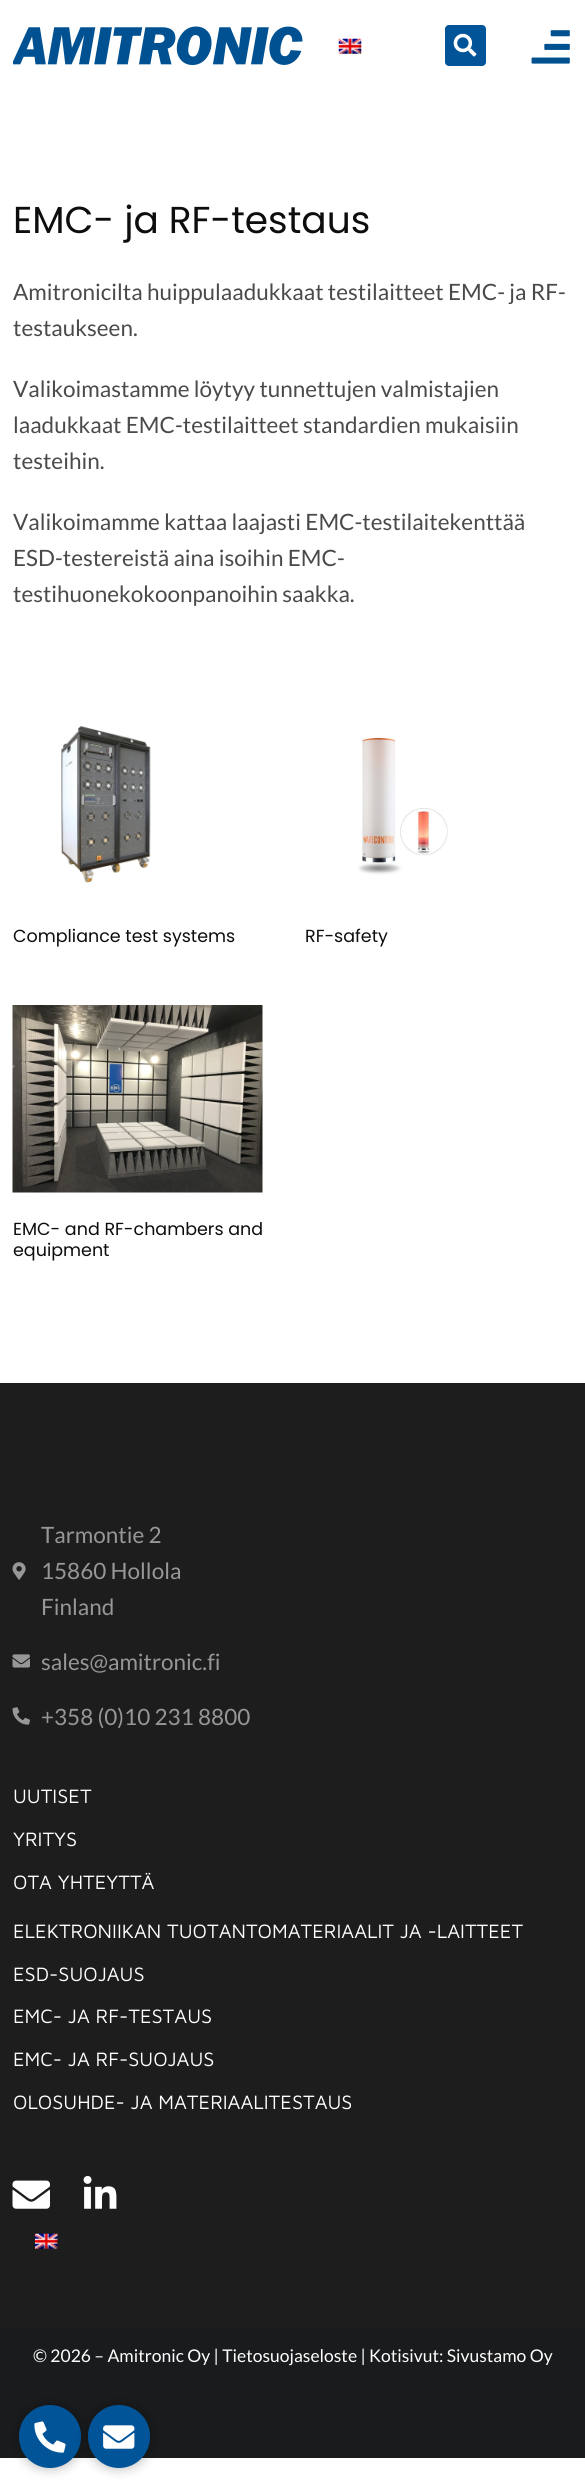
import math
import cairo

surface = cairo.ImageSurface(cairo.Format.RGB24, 585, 2480)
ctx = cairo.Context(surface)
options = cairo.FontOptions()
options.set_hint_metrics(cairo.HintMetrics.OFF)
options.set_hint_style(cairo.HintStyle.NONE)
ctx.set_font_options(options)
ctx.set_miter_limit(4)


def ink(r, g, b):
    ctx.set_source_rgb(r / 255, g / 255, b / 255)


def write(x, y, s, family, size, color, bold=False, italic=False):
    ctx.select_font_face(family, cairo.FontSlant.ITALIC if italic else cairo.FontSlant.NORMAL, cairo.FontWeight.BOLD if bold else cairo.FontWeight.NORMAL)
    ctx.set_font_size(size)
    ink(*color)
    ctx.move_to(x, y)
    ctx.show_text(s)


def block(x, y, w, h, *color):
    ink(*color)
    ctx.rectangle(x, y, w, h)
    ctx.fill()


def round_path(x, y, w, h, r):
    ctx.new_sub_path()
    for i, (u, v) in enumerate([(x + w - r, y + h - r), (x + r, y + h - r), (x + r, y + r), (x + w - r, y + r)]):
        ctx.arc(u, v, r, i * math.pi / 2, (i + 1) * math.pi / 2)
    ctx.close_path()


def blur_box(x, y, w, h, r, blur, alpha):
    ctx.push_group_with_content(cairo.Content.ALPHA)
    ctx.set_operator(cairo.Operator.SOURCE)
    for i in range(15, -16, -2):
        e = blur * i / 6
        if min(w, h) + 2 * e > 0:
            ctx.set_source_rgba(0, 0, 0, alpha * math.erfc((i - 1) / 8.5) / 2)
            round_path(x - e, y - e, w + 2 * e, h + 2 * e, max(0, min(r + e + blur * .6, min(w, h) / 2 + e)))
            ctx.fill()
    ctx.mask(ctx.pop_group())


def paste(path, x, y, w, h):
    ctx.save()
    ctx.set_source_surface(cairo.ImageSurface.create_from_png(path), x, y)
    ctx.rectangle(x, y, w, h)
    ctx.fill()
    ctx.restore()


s1 = dict(family="Poppins", size=37.5, color=(13, 13, 13))
s2 = dict(family="Lato", size=22.5, color=(74, 74, 74))
s3 = dict(family="Poppins", size=17.5, color=(13, 13, 13))
s4 = dict(family="Lato", size=22.5, color=(151, 151, 151))
s5 = dict(family="Maven Pro", size=20, color=(255, 255, 255))
s6 = dict(family="Lato", size=17.5, color=(255, 255, 255))

ink(255, 255, 255)
ctx.paint()
paste("pic1.png", 13, 26, 290, 39)
paste("pic2.png", 338, 38, 24, 16)
ink(1, 84, 152)
round_path(445, 25, 41, 41, 4)
ctx.fill()
paste("pic3.png", 453, 33, 24, 24)
paste("pic4.png", 531, 30, 39, 34)
write(13, 233, "EMC- ja RF-testaus", **s1)
write(13, 300, "Amitronicilta huippulaadukkaat testilaitteet EMC- ja RF-", **s2)
write(13, 336, "testaukseen.", **s2)
write(13, 397, "Valikoimastamme löytyy tunnettujen valmistajien", **s2)
write(13, 433, "laadukkaat EMC-testilaitteet standardien mukaisiin", **s2)
write(13, 469, "testeihin.", **s2)
write(13, 530, "Valikoimamme kattaa laajasti EMC-testilaitekenttää", **s2)
write(13, 566, "ESD-testereistä aina isoihin EMC-", **s2)
write(13, 602, "testihuonekokoonpanoihin saakka.", **s2)
paste("pic5.png", 61, 726, 90, 157)
write(13, 942, "Compliance test systems", **s3)
paste("pic6.png", 358, 737, 90, 138)
write(305, 942, "RF-safety", **s3)
paste("pic7.png", 12, 1005, 251, 188)
write(13, 1235, "EMC- and RF-chambers and", **s3)
write(13, 1256, "equipment", **s3)
block(0, 1383, 585, 946, 29, 29, 29)
paste("pic8.png", 12, 1562, 14, 18)
write(41, 1543, "Tarmontie 2", **s4)
write(41, 1579, "15860 Hollola", **s4)
write(41, 1615, "Finland", **s4)
paste("pic9.png", 12, 1654, 18, 14)
write(41, 1670, "sales@amitronic.fi", **s4)
paste("pic10.png", 12, 1707, 18, 18)
write(41, 1725, "+358 (0)10 231 8800", **s4)
write(13, 1803, "UUTISET", **s5)
write(13, 1846, "YRITYS", **s5)
write(13, 1889, "OTA YHTEYTTÄ", **s5)
write(13, 1938, "ELEKTRONIIKAN TUOTANTOMATERIAALIT JA -LAITTEET", **s5)
write(13, 1981, "ESD-SUOJAUS", **s5)
write(13, 2023, "EMC- JA RF-TESTAUS", **s5)
write(13, 2066, "EMC- JA RF-SUOJAUS", **s5)
write(13, 2109, "OLOSUHDE- JA MATERIAALITESTAUS", **s5)
paste("pic11.png", 12, 2180, 38, 29)
paste("pic12.png", 83, 2175, 34, 34)
paste("pic13.png", 35, 2233, 23, 16)
block(0, 2329, 585, 129, 26, 27, 28)
write(33, 2362, "© 2026 – Amitronic Oy | Tietosuojaseloste | Kotisivut: Sivustamo Oy", **s6)
ink(0, 0, 0)
blur_box(19, 2405, 62, 63, 31, 6, 0.3)
ink(1, 84, 152)
round_path(19, 2405, 62, 63, 31)
ctx.fill()
paste("pic14.png", 34, 2421, 32, 32)
ink(0, 0, 0)
blur_box(88, 2405, 62, 63, 31, 6, 0.3)
ink(1, 84, 152)
round_path(88, 2405, 62, 63, 31)
ctx.fill()
paste("pic15.png", 103, 2425, 32, 24)
surface.write_to_png("screenshot.png")
